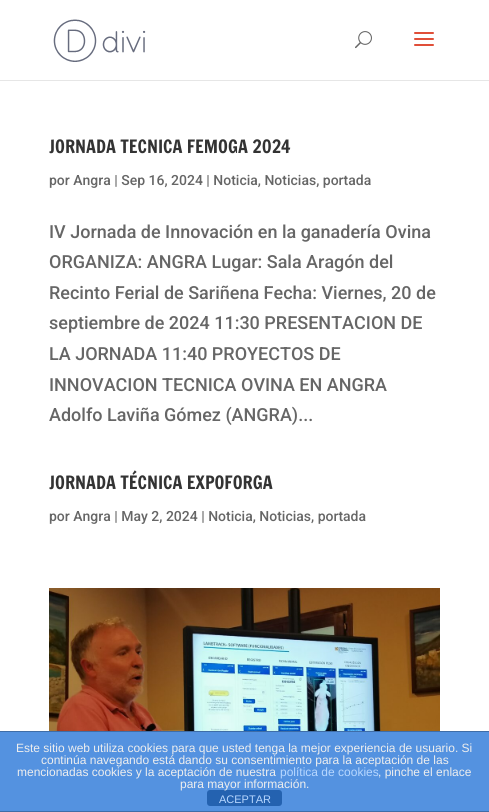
import math
import cairo

surface = cairo.ImageSurface(cairo.Format.RGB24, 489, 812)
ctx = cairo.Context(surface)
options = cairo.FontOptions()
options.set_hint_metrics(cairo.HintMetrics.OFF)
options.set_hint_style(cairo.HintStyle.NONE)
ctx.set_font_options(options)
ctx.set_miter_limit(4)


def ink(r, g, b):
    ctx.set_source_rgb(r / 255, g / 255, b / 255)


def write(x, y, s, family, size, color, bold=False, italic=False):
    ctx.select_font_face(family, cairo.FontSlant.ITALIC if italic else cairo.FontSlant.NORMAL, cairo.FontWeight.BOLD if bold else cairo.FontWeight.NORMAL)
    ctx.set_font_size(size)
    ink(*color)
    ctx.move_to(x, y)
    ctx.show_text(s)


def block(x, y, w, h, *color):
    ink(*color)
    ctx.rectangle(x, y, w, h)
    ctx.fill()


def round_path(x, y, w, h, r):
    ctx.new_sub_path()
    for i, (u, v) in enumerate([(x + w - r, y + h - r), (x + r, y + h - r), (x + r, y + r), (x + w - r, y + r)]):
        ctx.arc(u, v, r, i * math.pi / 2, (i + 1) * math.pi / 2)
    ctx.close_path()


def paste(path, x, y, w, h):
    ctx.save()
    ctx.set_source_surface(cairo.ImageSurface.create_from_png(path), x, y)
    ctx.rectangle(x, y, w, h)
    ctx.fill()
    ctx.restore()


s1 = dict(family="Francois One", size=18, color=(51, 51, 51))
s2 = dict(family="Roboto Medium", size=14, color=(102, 102, 102))
s3 = dict(family="Roboto Medium", size=18, color=(102, 102, 102))
s4 = dict(family="Liberation Sans", size=12, color=(238, 238, 238))
s5 = dict(family="Liberation Sans", size=12, color=(183, 215, 255))
s6 = dict(family="Liberation Sans", size=11, color=(183, 215, 255))

ink(255, 255, 255)
ctx.paint()
block(0, 80, 489, 1, 230, 230, 230)
paste("pic1.png", 53, 19, 93, 43)
paste("pic2.png", 355, 31, 17, 18)
paste("pic3.png", 414, 32, 20, 14)
write(49, 153, "JORNADA TECNICA FEMOGA 2024", **s1)
write(49, 185, "por Angra | Sep 16, 2024 | Noticia, Noticias, portada", **s2)
write(49, 238, "IV Jornada de Innovación en la ganadería Ovina", **s3)
write(49, 268, "ORGANIZA: ANGRA Lugar: Sala Aragón del", **s3)
write(49, 299, "Recinto Ferial de Sariñena Fecha: Viernes, 20 de", **s3)
write(49, 329, "septiembre de 2024 11:30 PRESENTACION DE", **s3)
write(49, 360, "LA JORNADA 11:40 PROYECTOS DE", **s3)
write(49, 391, "INNOVACION TECNICA OVINA EN ANGRA", **s3)
write(49, 421, "Adolfo Laviña Gómez (ANGRA)...", **s3)
write(49, 489, "JORNADA TÉCNICA EXPOFORGA", **s1)
write(49, 521, "por Angra | May 2, 2024 | Noticia, Noticias, portada", **s2)
paste("pic4.png", 49, 588, 391, 143)
block(0, 732, 489, 79, 84, 146, 224)
block(0, 731, 489, 1, 63, 109, 167)
block(0, 811, 489, 1, 63, 109, 167)
write(16, 752, "Este sitio web utiliza cookies para que usted tenga la mejor experiencia de usuario. Si", **s4)
write(41, 764, "continúa navegando está dando su consentimiento para la aceptación de las", **s4)
write(17, 776, "mencionadas cookies y la aceptación de nuestra", **s4)
write(280, 776, "política de cookies", **s5)
write(378, 776, ", pinche el enlace", **s4)
ink(36, 98, 176)
round_path(207, 790, 75, 16, 3)
ctx.fill()
write(180, 788, "para mayor información.", **s4)
write(219, 803, "ACEPTAR", **s6)
surface.write_to_png("screenshot.png")
